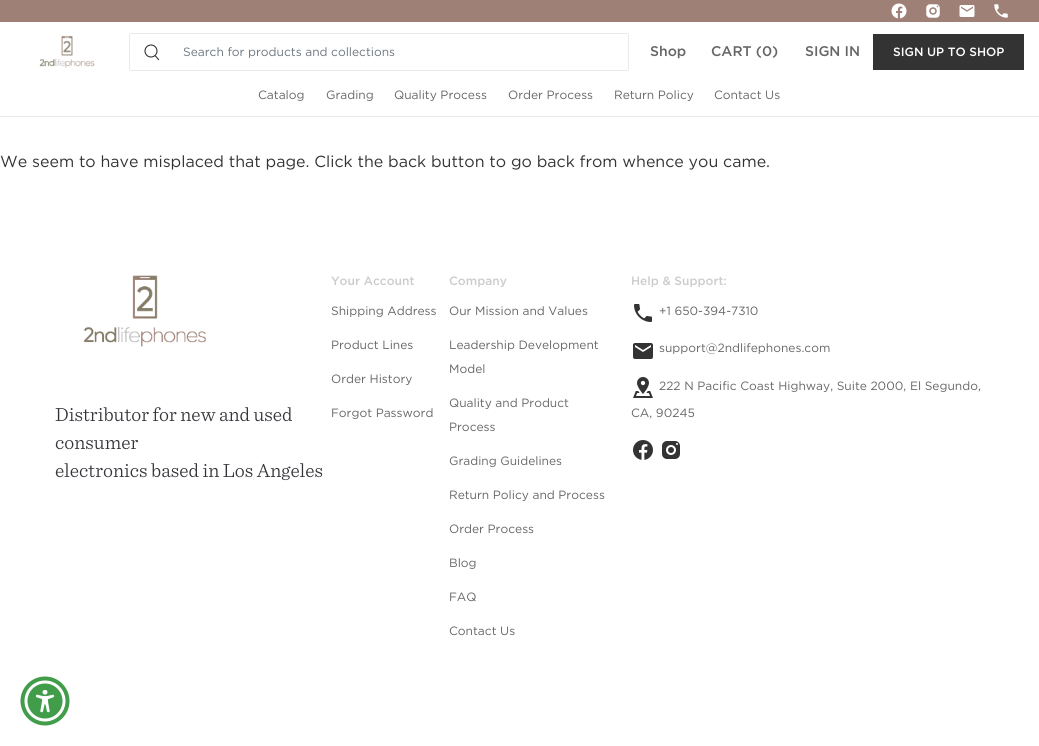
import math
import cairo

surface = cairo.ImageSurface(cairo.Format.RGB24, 1039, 746)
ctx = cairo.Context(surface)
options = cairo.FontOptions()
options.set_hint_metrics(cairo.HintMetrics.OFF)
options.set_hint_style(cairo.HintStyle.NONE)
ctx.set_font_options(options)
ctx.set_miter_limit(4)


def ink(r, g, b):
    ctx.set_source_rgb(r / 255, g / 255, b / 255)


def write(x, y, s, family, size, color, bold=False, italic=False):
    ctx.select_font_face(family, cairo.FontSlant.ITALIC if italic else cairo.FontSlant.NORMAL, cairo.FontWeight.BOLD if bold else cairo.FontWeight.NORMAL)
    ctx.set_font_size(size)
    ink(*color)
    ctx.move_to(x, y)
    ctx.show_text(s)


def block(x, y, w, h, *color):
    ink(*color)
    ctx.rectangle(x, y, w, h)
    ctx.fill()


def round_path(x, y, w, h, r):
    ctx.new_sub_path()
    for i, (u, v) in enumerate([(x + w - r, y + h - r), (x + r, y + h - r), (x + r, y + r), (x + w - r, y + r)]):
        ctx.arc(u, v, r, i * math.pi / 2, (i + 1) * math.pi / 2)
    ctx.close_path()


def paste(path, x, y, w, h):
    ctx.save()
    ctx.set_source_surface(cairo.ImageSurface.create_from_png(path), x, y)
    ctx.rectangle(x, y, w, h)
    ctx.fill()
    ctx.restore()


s1 = dict(family="Gotham", size=12, color=(108, 117, 125))
s2 = dict(family="Gotham Medium", size=14, color=(102, 102, 102))
s3 = dict(family="Gotham Medium", size=12, color=(255, 255, 255))
s4 = dict(family="Gotham", size=12, color=(102, 102, 102))
s5 = dict(family="Gotham", size=16, color=(51, 51, 51))
s6 = dict(family="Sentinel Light", size=20, color=(51, 51, 57))
s7 = dict(family="Gotham Medium", size=12, color=(204, 204, 204))

ink(255, 255, 255)
ctx.paint()
block(0, 116, 1039, 1, 234, 234, 234)
block(0, 0, 1039, 22, 158, 128, 118)
paste("pic1.png", 891, 3, 16, 16)
paste("pic2.png", 926, 4, 14, 14)
paste("pic3.png", 959, 5, 16, 12)
paste("pic4.png", 994, 4, 14, 14)
paste("pic5.png", 39, 35, 56, 33)
round_path(129.5, 33.5, 499, 37, 1.5)
ink(234, 234, 234)
ctx.set_line_width(1)
ctx.stroke()
ctx.arc(151, 51, 6, 0, 2 * math.pi)
ink(51, 51, 51)
ctx.set_line_width(1.1)
ctx.stroke()
ctx.new_path()
ctx.move_to(155.5, 56)
ctx.line_to(158.5, 59.5)
ctx.set_line_cap(cairo.LineCap.SQUARE)
ctx.stroke()
write(183, 56, "Search for products and collections", **s1)
write(650, 56, "Shop", **s2)
write(711, 56, "CART (0)", **s2)
write(805, 56, "SIGN IN", **s2)
block(873, 34, 151, 36, 51, 51, 51)
write(893, 56, "SIGN UP TO SHOP", **s3)
write(258, 99, "Catalog", **s4)
write(326, 99, "Grading", **s4)
write(394, 99, "Quality Process", **s4)
write(508, 99, "Order Process", **s4)
write(614, 99, "Return Policy", **s4)
write(714, 99, "Contact Us", **s4)
write(0, 167, "We seem to have misplaced that page. Click the back button to go back from whence you came.", **s5)
paste("pic6.png", 83, 275, 124, 72)
write(55, 421, "Distributor for new and used", **s6)
write(55, 449, "consumer", **s6)
write(55, 477, "electronics based in Los Angeles", **s6)
write(331, 285, "Your Account", **s7)
write(331, 315, "Shipping Address", **s4)
write(331, 349, "Product Lines", **s4)
write(331, 383, "Order History", **s4)
write(331, 417, "Forgot Password", **s4)
write(449, 285, "Company", **s7)
write(449, 315, "Our Mission and Values", **s4)
write(449, 349, "Leadership Development", **s4)
write(449, 373, "Model", **s4)
write(449, 407, "Quality and Product", **s4)
write(449, 431, "Process", **s4)
write(449, 465, "Grading Guidelines", **s4)
write(449, 499, "Return Policy and Process", **s4)
write(449, 533, "Order Process", **s4)
write(449, 567, "Blog", **s4)
write(449, 601, "FAQ", **s4)
write(449, 635, "Contact Us", **s4)
write(631, 285, "Help & Support:", **s7)
paste("pic7.png", 634, 304, 18, 18)
write(659, 315, "+1 650-394-7310", **s4)
paste("pic8.png", 633, 343, 20, 16)
write(659, 352, "support@2ndlifephones.com", **s4)
paste("pic9.png", 633, 377, 20, 21)
write(659, 390, "222 N Pacific Coast Highway, Suite 2000, El Segundo,", **s4)
write(631, 417, "CA, 90245", **s4)
paste("pic10.png", 633, 440, 20, 20)
paste("pic11.png", 662, 441, 18, 18)
ink(65, 157, 74)
ctx.arc(45, 701, 24.5, 0, 2 * math.pi)
ctx.fill()
ink(255, 255, 255)
ctx.arc(45, 701, 20.5, 0, 2 * math.pi)
ctx.fill()
ink(65, 157, 74)
ctx.arc(45, 701, 17.5, 0, 2 * math.pi)
ctx.fill()
paste("pic12.png", 35, 690, 20, 23)
surface.write_to_png("screenshot.png")
